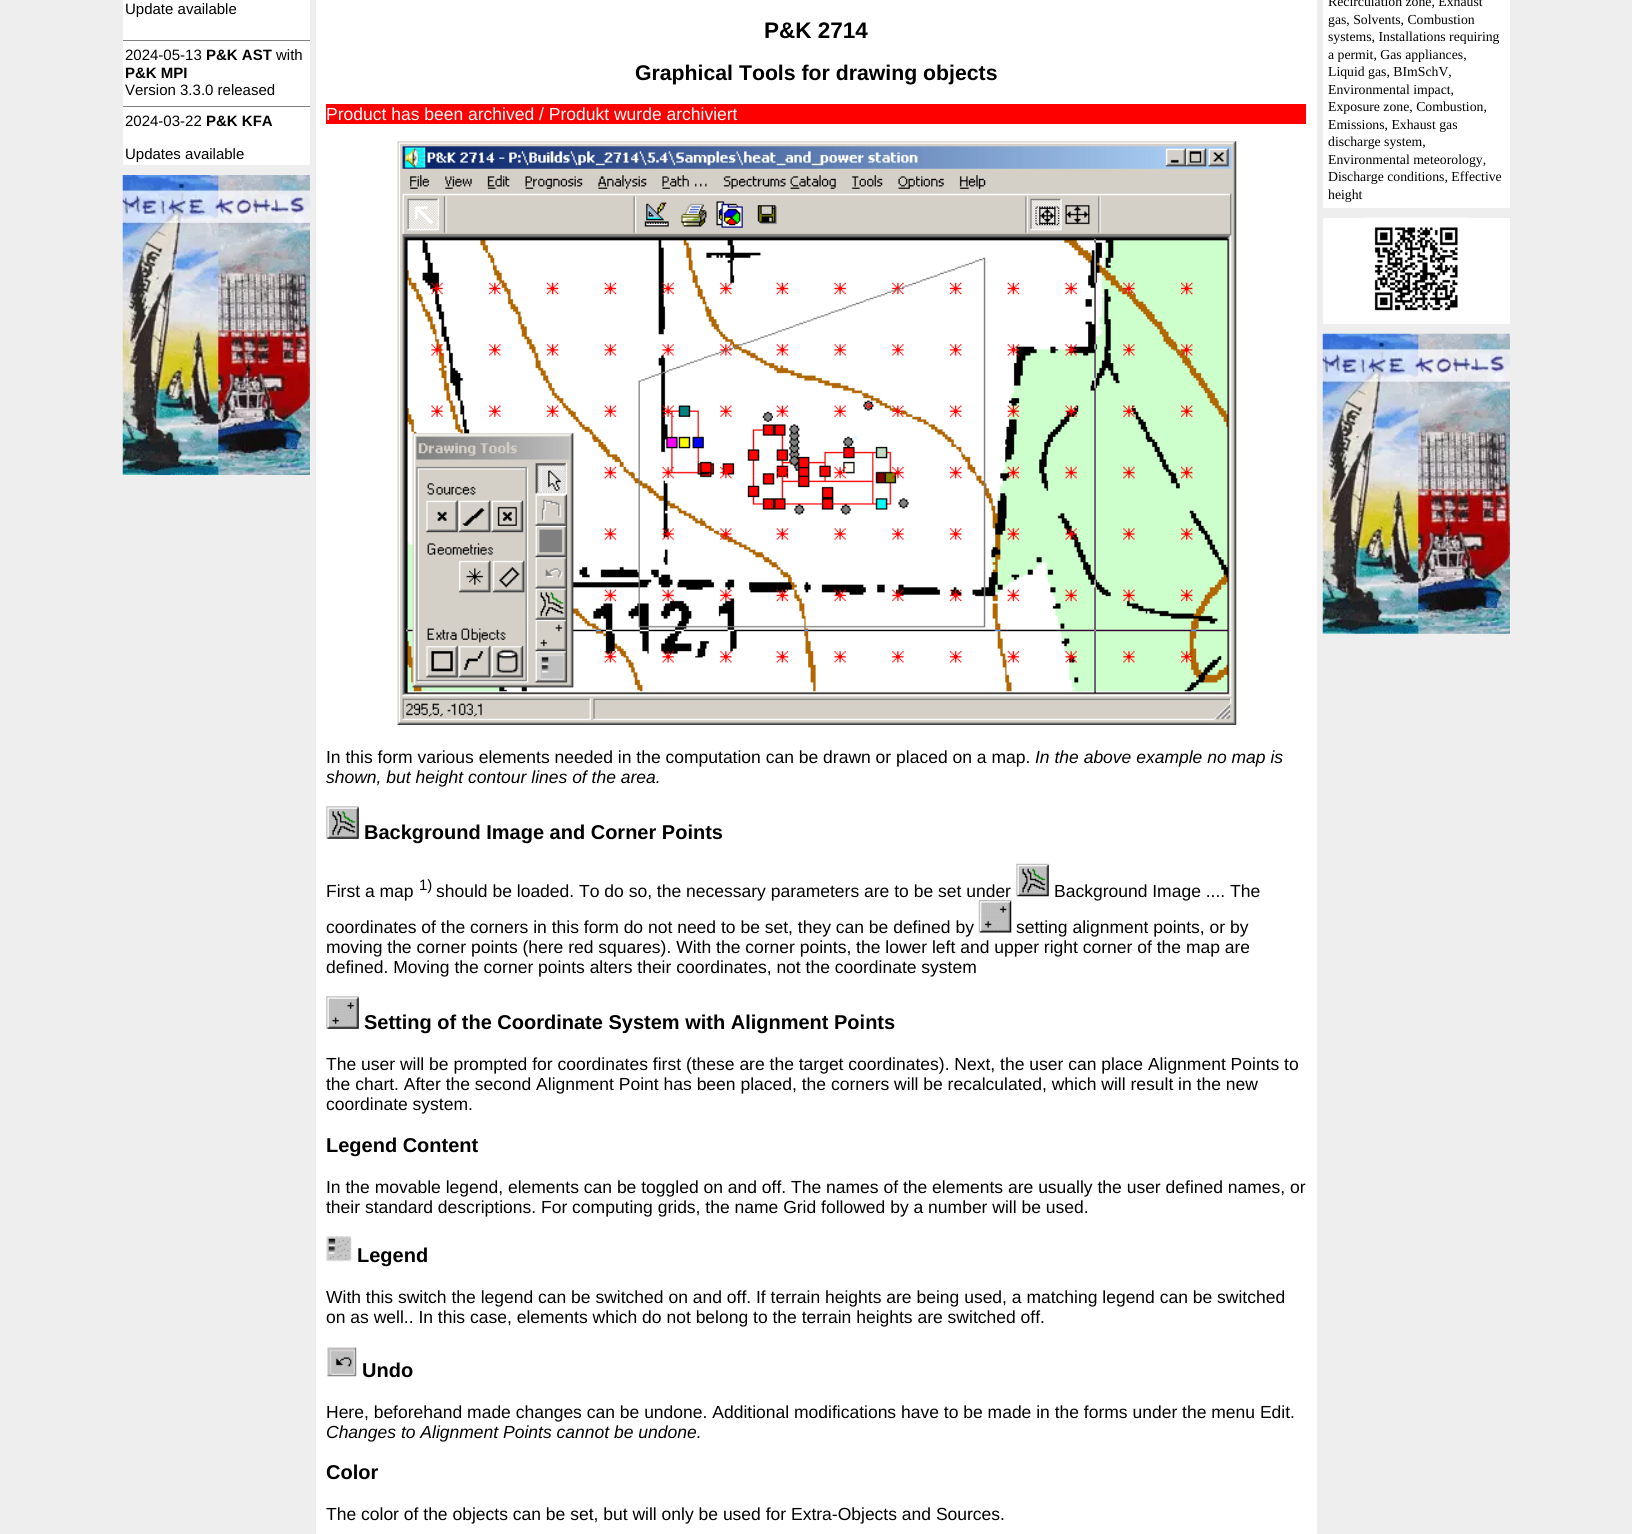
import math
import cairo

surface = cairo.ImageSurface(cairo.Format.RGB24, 1632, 1534)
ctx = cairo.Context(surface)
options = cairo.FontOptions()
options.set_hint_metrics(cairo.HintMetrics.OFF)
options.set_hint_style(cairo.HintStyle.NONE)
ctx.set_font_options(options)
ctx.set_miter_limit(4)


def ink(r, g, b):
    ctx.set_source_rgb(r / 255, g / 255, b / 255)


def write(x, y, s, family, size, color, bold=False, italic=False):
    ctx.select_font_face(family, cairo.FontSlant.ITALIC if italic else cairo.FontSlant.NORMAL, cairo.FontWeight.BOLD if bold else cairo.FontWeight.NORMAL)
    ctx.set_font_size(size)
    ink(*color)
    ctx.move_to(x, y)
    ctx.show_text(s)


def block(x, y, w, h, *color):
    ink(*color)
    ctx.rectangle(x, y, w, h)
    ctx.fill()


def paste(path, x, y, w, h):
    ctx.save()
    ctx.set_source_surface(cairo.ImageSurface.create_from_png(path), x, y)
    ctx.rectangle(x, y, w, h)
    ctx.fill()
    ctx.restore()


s1 = dict(family="Liberation Sans", size=15, color=(0, 0, 0))
s2 = dict(family="Liberation Sans", size=15, color=(0, 0, 0), bold=True)
s3 = dict(family="Liberation Sans", size=22.5, color=(0, 0, 0), bold=True)
s4 = dict(family="Liberation Sans", size=21.25, color=(0, 0, 0), bold=True)
s5 = dict(family="Liberation Sans", size=17.5, color=(255, 255, 255))
s6 = dict(family="Liberation Sans", size=17.5, color=(0, 0, 0))
s7 = dict(family="Liberation Sans", size=17.5, color=(0, 0, 0), italic=True)
s8 = dict(family="Liberation Sans", size=20, color=(0, 0, 0), bold=True)
s9 = dict(family="Liberation Serif", size=13.75, color=(0, 0, 0))

ink(238, 238, 238)
ctx.paint()
block(123, 0, 187, 165, 255, 255, 255)
write(125, 14, "Update available", **s1)
block(123, 40, 187, 1, 128, 128, 128)
write(125, 60, "2024-05-13", **s1)
write(206, 60, "P&K AST", **s2)
write(276, 60, "with", **s1)
write(125, 78, "P&K MPI", **s2)
write(125, 95, "Version 3.3.0 released", **s1)
block(123, 106, 187, 1, 128, 128, 128)
write(125, 126, "2024-03-22", **s1)
write(206, 126, "P&K KFA", **s2)
write(125, 159, "Updates available", **s1)
paste("pic1.png", 122, 175, 188, 300)
block(316, 0, 1001, 1534, 255, 255, 255)
write(764, 38, "P&K 2714", **s3)
write(635, 80, "Graphical Tools for drawing objects", **s4)
block(326, 104, 980, 20, 255, 0, 0)
write(326, 120, "Product has been archived / Produkt wurde archiviert", **s5)
paste("pic2.png", 397, 141, 840, 584)
write(326, 763, "In this form various elements needed in the computation can be drawn or placed on a map.", **s6)
write(1035, 763, "In the above example no map is", **s7)
write(326, 783, "shown, but height contour lines of the area.", **s7)
paste("pic3.png", 326, 806, 33, 33)
write(364, 839, "Background Image and Corner Points", **s8)
write(326, 897, "First a map", **s6)
write(419, 890, "1)", **s1)
write(436, 897, "should be loaded. To do so, the necessary parameters are to be set under", **s6)
paste("pic4.png", 1016, 863, 33, 34)
write(1054, 897, "Background Image .... The", **s6)
write(326, 933, "coordinates of the corners in this form do not need to be set, they can be defined by", **s6)
paste("pic5.png", 978, 900, 34, 33)
write(1016, 933, "setting alignment points, or by", **s6)
write(326, 953, "moving the corner points (here red squares). With the corner points, the lower left and upper right corner of the map are", **s6)
write(326, 973, "defined. Moving the corner points alters their coordinates, not the coordinate system", **s6)
paste("pic6.png", 326, 996, 33, 33)
write(364, 1029, "Setting of the Coordinate System with Alignment Points", **s8)
write(326, 1070, "The user will be prompted for coordinates first (these are the target coordinates). Next, the user can place Alignment Points to", **s6)
write(326, 1090, "the chart. After the second Alignment Point has been placed, the corners will be recalculated, which will result in the new", **s6)
write(326, 1110, "coordinate system.", **s6)
write(326, 1152, "Legend Content", **s8)
write(326, 1193, "In the movable legend, elements can be toggled on and off. The names of the elements are usually the user defined names, or", **s6)
write(326, 1213, "their standard descriptions. For computing grids, the name Grid followed by a number will be used.", **s6)
paste("pic7.png", 326, 1236, 26, 26)
write(357, 1262, "Legend", **s8)
write(326, 1303, "With this switch the legend can be switched on and off. If terrain heights are being used, a matching legend can be switched", **s6)
write(326, 1323, "on as well.. In this case, elements which do not belong to the terrain heights are switched off.", **s6)
paste("pic8.png", 327, 1347, 30, 30)
write(362, 1377, "Undo", **s8)
write(326, 1418, "Here, beforehand made changes can be undone. Additional modifications have to be made in the forms under the menu Edit.", **s6)
write(326, 1438, "Changes to Alignment Points cannot be undone.", **s7)
write(326, 1479, "Color", **s8)
write(326, 1520, "The color of the objects can be set, but will only be used for Extra-Objects and Sources.", **s6)
block(1323, 0, 187, 208, 255, 255, 255)
write(1328, 6, "Recirculation zone, Exhaust", **s9)
write(1328, 24, "gas, Solvents, Combustion", **s9)
write(1328, 41, "systems, Installations requiring", **s9)
write(1328, 59, "a permit, Gas appliances,", **s9)
write(1328, 76, "Liquid gas, BImSchV,", **s9)
write(1328, 94, "Environmental impact,", **s9)
write(1328, 111, "Exposure zone, Combustion,", **s9)
write(1328, 129, "Emissions, Exhaust gas", **s9)
write(1328, 146, "discharge system,", **s9)
write(1328, 164, "Environmental meteorology,", **s9)
write(1328, 181, "Discharge conditions, Effective", **s9)
write(1328, 199, "height", **s9)
block(1323, 218, 187, 106, 255, 255, 255)
paste("pic9.png", 1365, 217, 103, 94)
paste("pic10.png", 1322, 333, 188, 301)
surface.write_to_png("screenshot.png")
